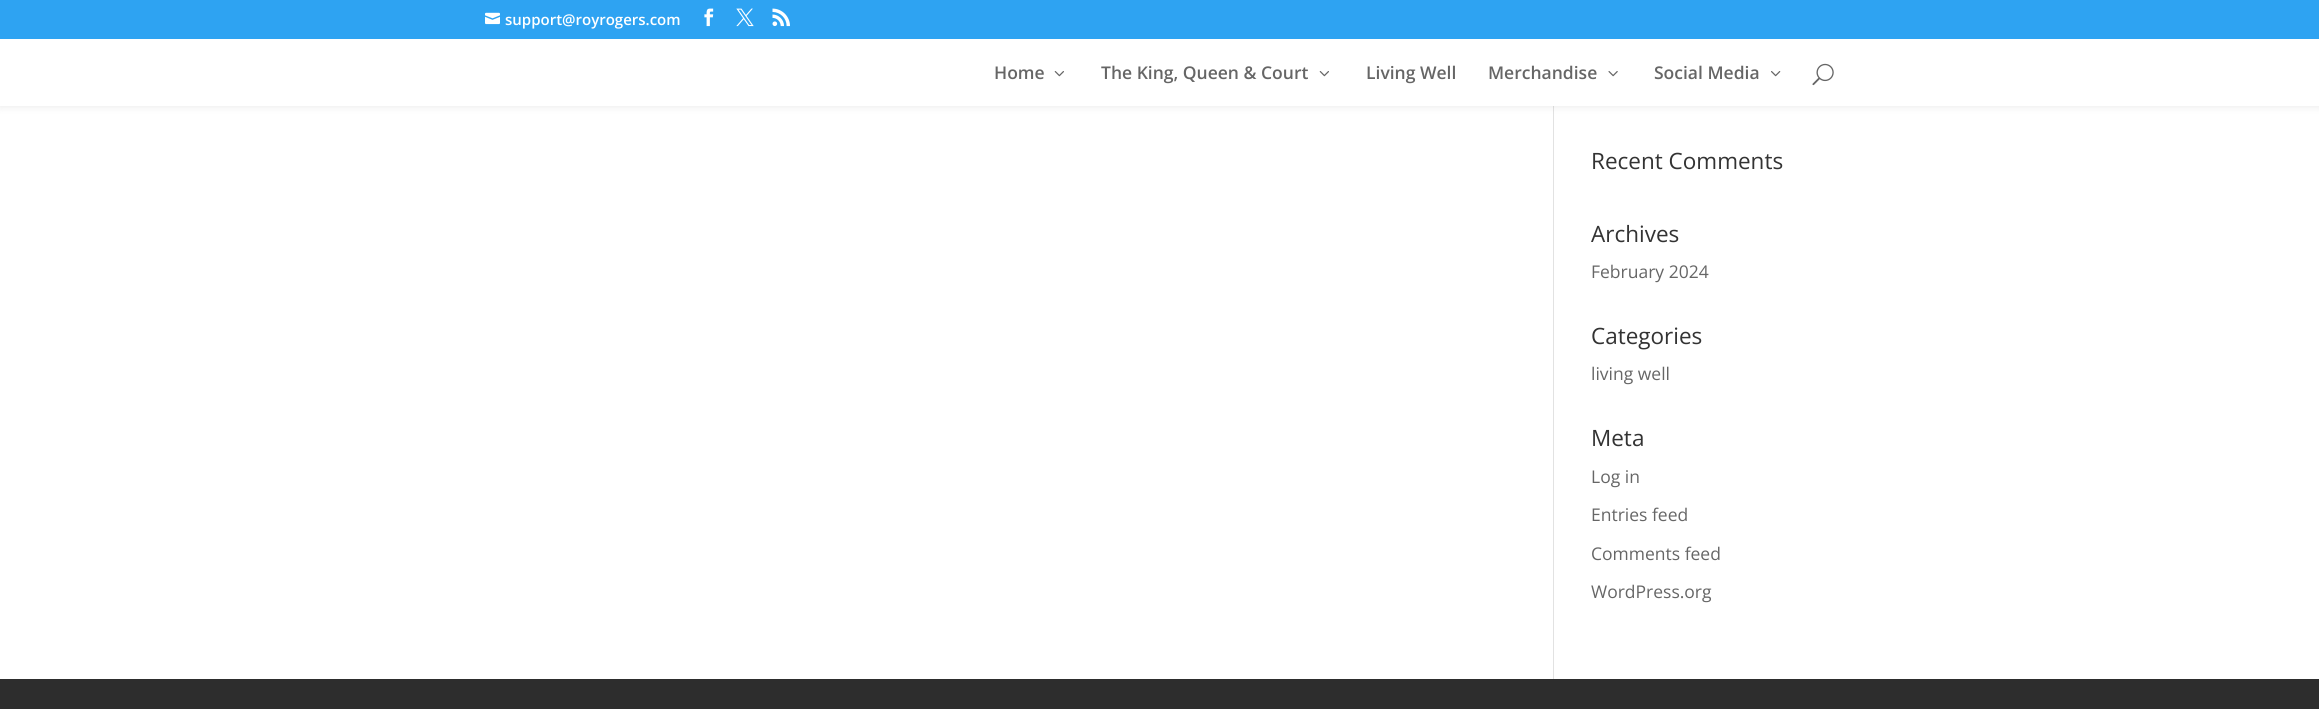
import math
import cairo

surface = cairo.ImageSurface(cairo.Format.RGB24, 2319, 709)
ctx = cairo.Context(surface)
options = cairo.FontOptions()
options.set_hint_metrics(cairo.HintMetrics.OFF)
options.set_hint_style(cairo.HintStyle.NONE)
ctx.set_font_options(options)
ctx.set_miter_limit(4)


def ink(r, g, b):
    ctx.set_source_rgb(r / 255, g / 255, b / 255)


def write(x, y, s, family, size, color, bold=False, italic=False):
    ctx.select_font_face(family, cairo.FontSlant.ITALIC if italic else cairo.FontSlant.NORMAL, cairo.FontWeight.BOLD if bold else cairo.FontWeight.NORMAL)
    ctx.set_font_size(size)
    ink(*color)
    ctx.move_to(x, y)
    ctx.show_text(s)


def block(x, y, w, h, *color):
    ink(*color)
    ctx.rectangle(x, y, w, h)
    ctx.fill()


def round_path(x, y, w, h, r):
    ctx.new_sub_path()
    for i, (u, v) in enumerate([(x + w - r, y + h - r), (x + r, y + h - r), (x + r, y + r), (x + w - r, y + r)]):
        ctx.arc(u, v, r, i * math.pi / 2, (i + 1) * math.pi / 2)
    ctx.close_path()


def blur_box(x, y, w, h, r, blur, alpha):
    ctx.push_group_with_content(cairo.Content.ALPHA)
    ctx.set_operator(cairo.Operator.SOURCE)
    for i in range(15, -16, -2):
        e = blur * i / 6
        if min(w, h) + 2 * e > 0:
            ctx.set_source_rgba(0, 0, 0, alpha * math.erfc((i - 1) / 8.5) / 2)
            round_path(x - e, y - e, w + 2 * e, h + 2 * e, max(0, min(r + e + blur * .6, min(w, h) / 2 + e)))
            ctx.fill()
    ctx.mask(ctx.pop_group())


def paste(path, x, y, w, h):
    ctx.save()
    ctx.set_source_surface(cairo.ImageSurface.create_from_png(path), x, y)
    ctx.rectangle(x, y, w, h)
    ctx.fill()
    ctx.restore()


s1 = dict(family="Open Sans SemiBold", size=15, color=(255, 255, 255))
s2 = dict(family="Open Sans SemiBold", size=17.5, color=(102, 102, 102))
s3 = dict(family="Open Sans", size=22.5, color=(51, 51, 51))
s4 = dict(family="Open Sans", size=17.5, color=(102, 102, 102))

ink(255, 255, 255)
ctx.paint()
block(1553, 106, 1, 573, 226, 226, 226)
ink(0, 0, 0)
blur_box(0, 39, 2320, 67, 0, 4.5, 0.1)
block(0, 0, 2319, 39, 46, 163, 242)
paste("pic1.png", 485, 12, 15, 13)
write(505, 25, "support@royrogers.com", **s1)
paste("pic2.png", 704, 8, 10, 19)
paste("pic3.png", 736, 8, 18, 19)
paste("pic4.png", 772, 8, 18, 19)
block(0, 39, 2319, 67, 255, 255, 255)
write(994, 79, "Home", **s2)
paste("pic5.png", 1054, 71, 10, 6)
write(1101, 79, "The King, Queen & Court", **s2)
paste("pic5.png", 1319, 71, 10, 6)
write(1366, 79, "Living Well", **s2)
write(1488, 79, "Merchandise", **s2)
paste("pic6.png", 1608, 71, 10, 6)
write(1654, 79, "Social Media", **s2)
paste("pic7.png", 1771, 71, 10, 6)
paste("pic8.png", 1812, 63, 22, 23)
write(1591, 169, "Recent Comments", **s3)
write(1591, 242, "Archives", **s3)
write(1591, 278, "February 2024", **s4)
write(1591, 344, "Categories", **s3)
write(1591, 380, "living well", **s4)
write(1591, 446, "Meta", **s3)
write(1591, 483, "Log in", **s4)
write(1591, 521, "Entries feed", **s4)
write(1591, 560, "Comments feed", **s4)
write(1591, 598, "WordPress.org", **s4)
block(0, 679, 2319, 30, 45, 45, 45)
surface.write_to_png("screenshot.png")
